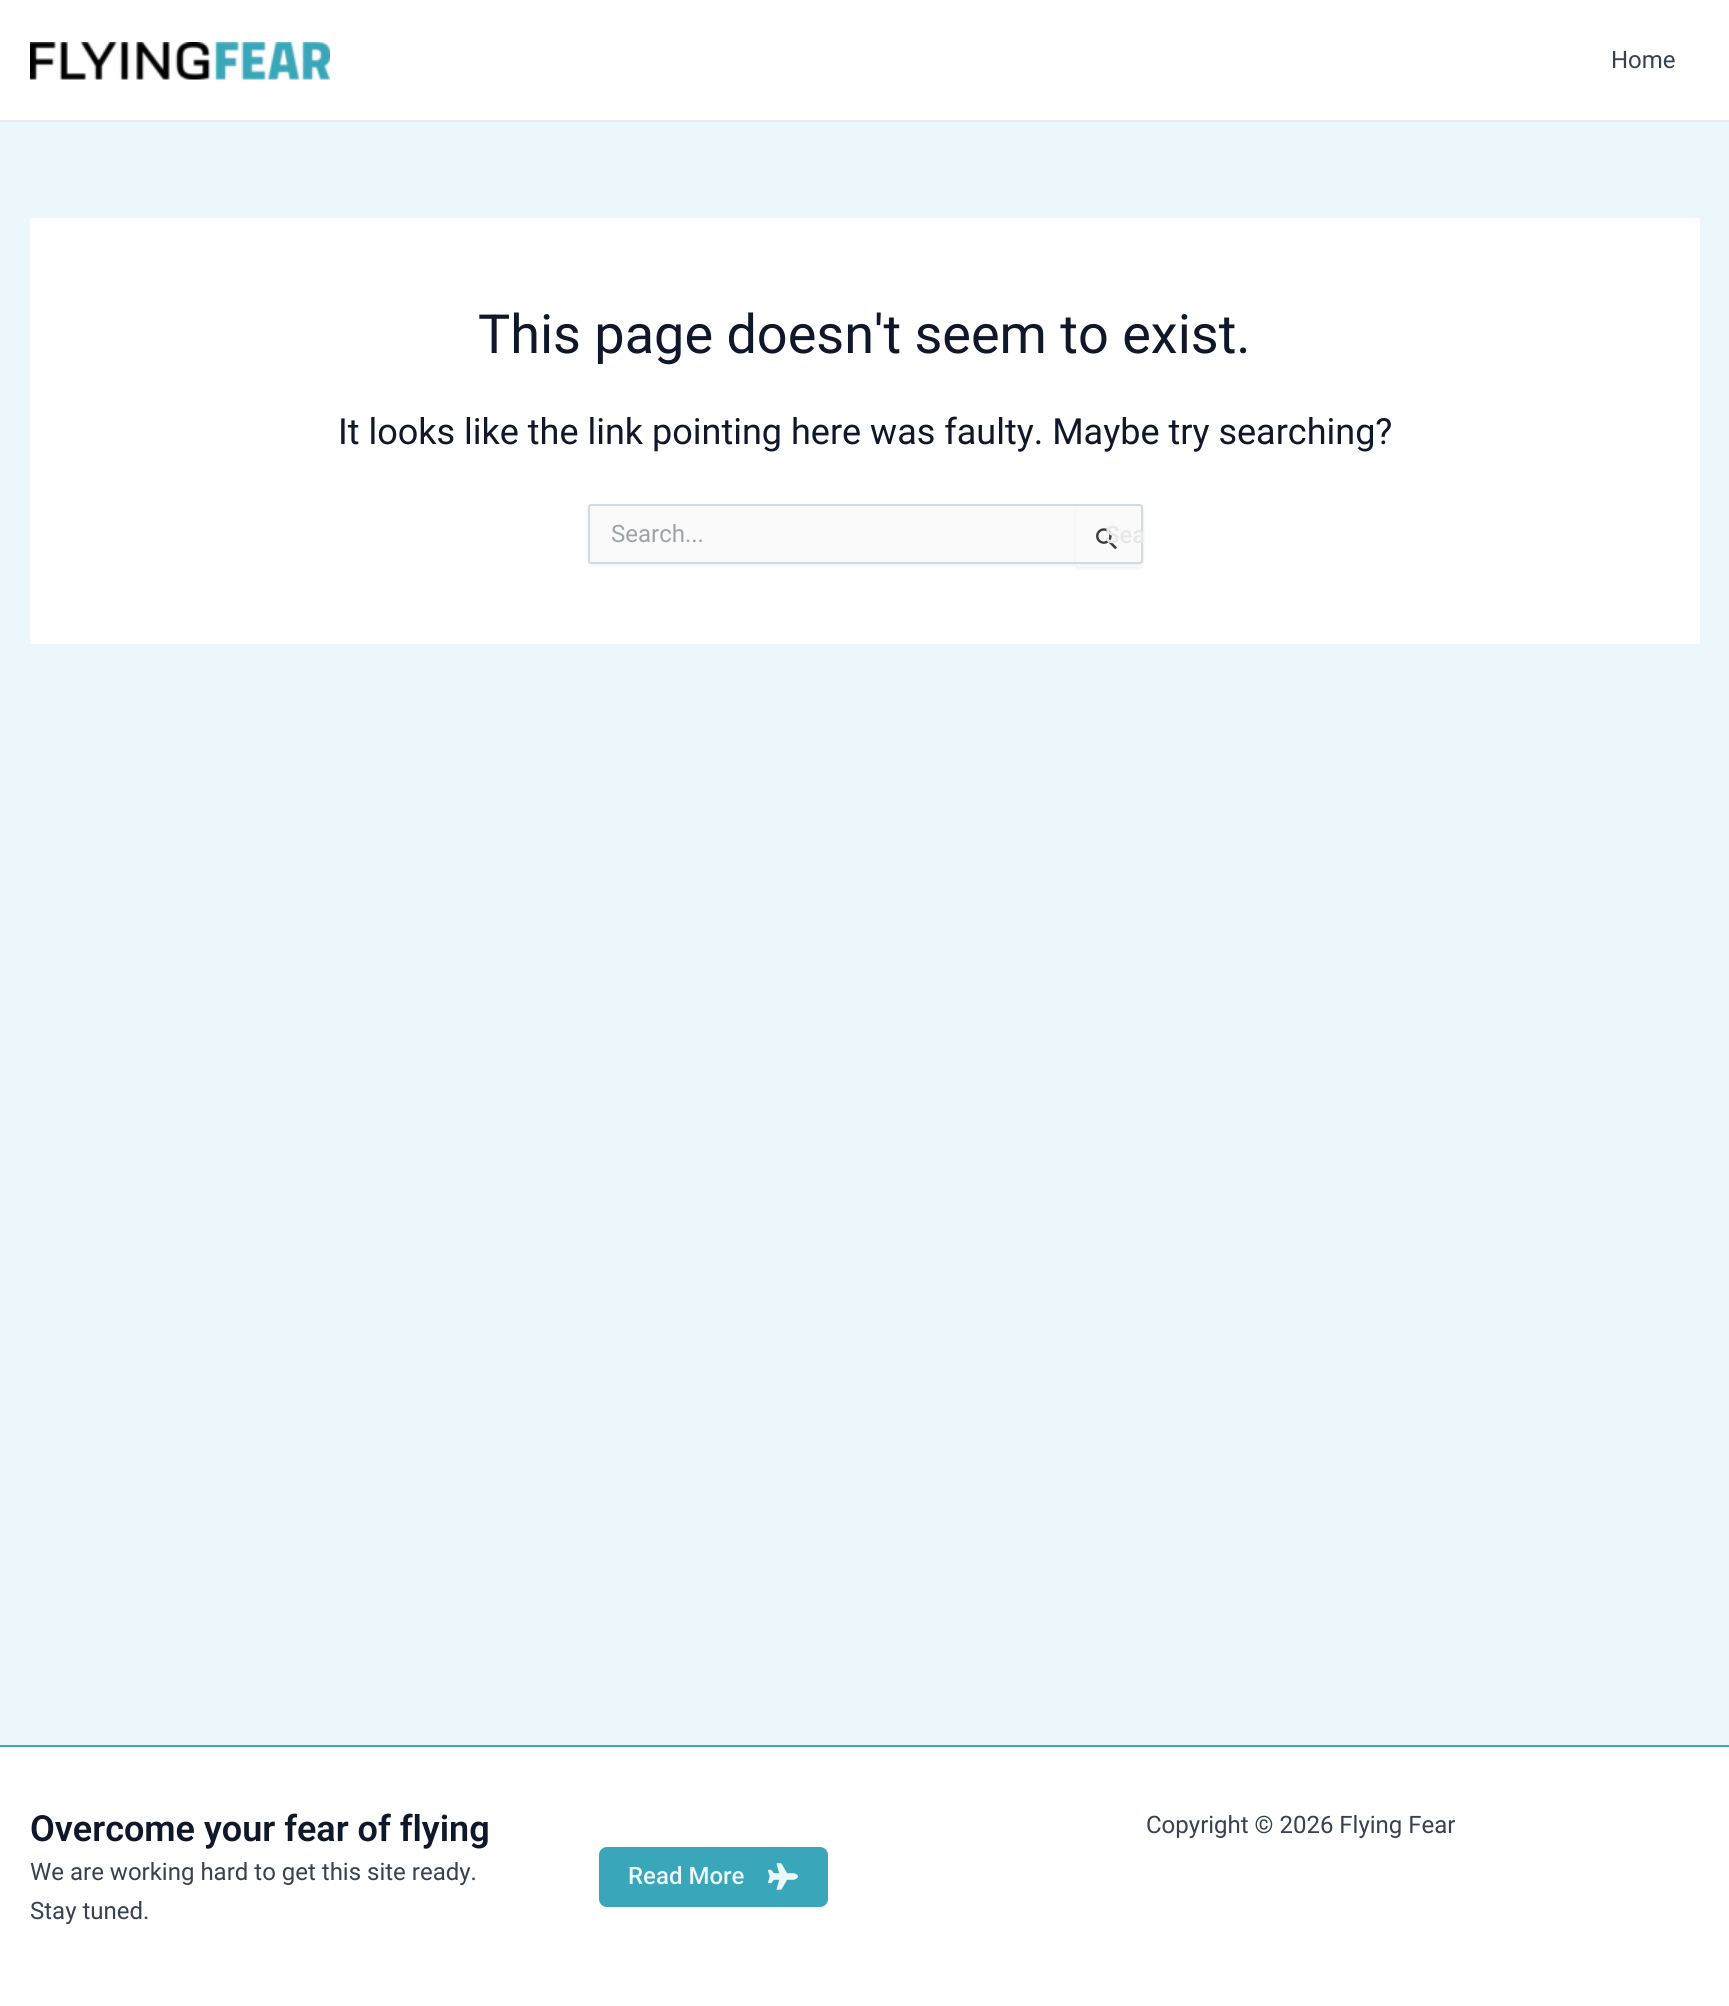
import math
import cairo

surface = cairo.ImageSurface(cairo.Format.RGB24, 1729, 2006)
ctx = cairo.Context(surface)
options = cairo.FontOptions()
options.set_hint_metrics(cairo.HintMetrics.OFF)
options.set_hint_style(cairo.HintStyle.NONE)
ctx.set_font_options(options)
ctx.set_miter_limit(4)


def ink(r, g, b):
    ctx.set_source_rgb(r / 255, g / 255, b / 255)


def write(x, y, s, family, size, color, bold=False, italic=False):
    ctx.select_font_face(family, cairo.FontSlant.ITALIC if italic else cairo.FontSlant.NORMAL, cairo.FontWeight.BOLD if bold else cairo.FontWeight.NORMAL)
    ctx.set_font_size(size)
    ink(*color)
    ctx.move_to(x, y)
    ctx.show_text(s)


def block(x, y, w, h, *color):
    ink(*color)
    ctx.rectangle(x, y, w, h)
    ctx.fill()


def round_path(x, y, w, h, r):
    ctx.new_sub_path()
    for i, (u, v) in enumerate([(x + w - r, y + h - r), (x + r, y + h - r), (x + r, y + r), (x + w - r, y + r)]):
        ctx.arc(u, v, r, i * math.pi / 2, (i + 1) * math.pi / 2)
    ctx.close_path()


def blur_box(x, y, w, h, r, blur, alpha):
    ctx.push_group_with_content(cairo.Content.ALPHA)
    ctx.set_operator(cairo.Operator.SOURCE)
    for i in range(15, -16, -2):
        e = blur * i / 6
        if min(w, h) + 2 * e > 0:
            ctx.set_source_rgba(0, 0, 0, alpha * math.erfc((i - 1) / 8.5) / 2)
            round_path(x - e, y - e, w + 2 * e, h + 2 * e, max(0, min(r + e + blur * .6, min(w, h) / 2 + e)))
            ctx.fill()
    ctx.mask(ctx.pop_group())


def paste(path, x, y, w, h):
    ctx.save()
    ctx.set_source_surface(cairo.ImageSurface.create_from_png(path), x, y)
    ctx.rectangle(x, y, w, h)
    ctx.fill()
    ctx.restore()


s1 = dict(family="Roboto", size=24, color=(54, 65, 81))
s2 = dict(family="Roboto", size=54, color=(15, 23, 42))
s3 = dict(family="Roboto", size=36, color=(15, 23, 42))
s4 = dict(family="Roboto", size=24, color=(156, 163, 175))
s5 = dict(family="Roboto Medium", size=24, color=(230, 231, 231))
s6 = dict(family="Roboto SemiBold", size=36, color=(15, 23, 42))
s7 = dict(family="Roboto Medium", size=24, color=(235, 247, 250))

ink(235, 247, 250)
ctx.paint()
block(0, 0, 1729, 120, 255, 255, 255)
block(0, 120, 1729, 2, 234, 234, 234)
paste("pic1.png", 30, 42, 300, 38)
write(1611, 68, "Home", **s1)
block(30, 218, 1670, 426, 255, 255, 255)
write(478, 353, "This page doesn't seem to exist.", **s2)
write(338, 444, "It looks like the link pointing here was faulty. Maybe try searching?", **s3)
ink(0, 0, 0)
blur_box(588, 506, 555, 60, 3, 1.5, 0.05)
ink(250, 250, 250)
round_path(589, 505, 553, 58, 2)
ctx.fill_preserve()
ink(209, 218, 229)
ctx.stroke()
write(611, 542, "Search...", **s4)
paste("pic2.png", 1096, 528, 21, 22)
ctx.save()
ctx.set_fill_rule(cairo.FillRule.EVEN_ODD)
ctx.new_path()
ctx.move_to(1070, 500)
ctx.line_to(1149, 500)
ctx.line_to(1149, 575)
ctx.line_to(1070, 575)
ctx.close_path()
ctx.move_to(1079, 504)
ctx.line_to(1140, 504)
ctx.curve_to(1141.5, 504, 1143, 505.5, 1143, 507)
ctx.line_to(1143, 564)
ctx.curve_to(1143, 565.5, 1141.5, 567, 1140, 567)
ctx.line_to(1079, 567)
ctx.curve_to(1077.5, 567, 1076, 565.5, 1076, 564)
ctx.line_to(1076, 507)
ctx.curve_to(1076, 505.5, 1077.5, 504, 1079, 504)
ctx.close_path()
ctx.clip()
ink(0, 0, 0)
blur_box(1076, 506, 67, 63, 3, 1.5, 0.05)
ctx.restore()
ctx.save()
round_path(1076, 504, 67, 63, 3)
ctx.clip()
write(1105, 543, "Sea", **s5)
ctx.restore()
block(0, 1747, 1729, 259, 255, 255, 255)
block(0, 1745, 1729, 2, 57, 166, 185)
write(30, 1841, "Overcome your fear of flying", **s6)
write(30, 1880, "We are working hard to get this site ready.", **s1)
write(30, 1919, "Stay tuned.", **s1)
ink(57, 166, 185)
round_path(599, 1847, 229, 60, 8)
ctx.fill()
write(628, 1884, "Read More", **s7)
paste("pic3.png", 768, 1863, 30, 27)
write(1146, 1833, "Copyright © 2026 Flying Fear", **s1)
surface.write_to_png("screenshot.png")
